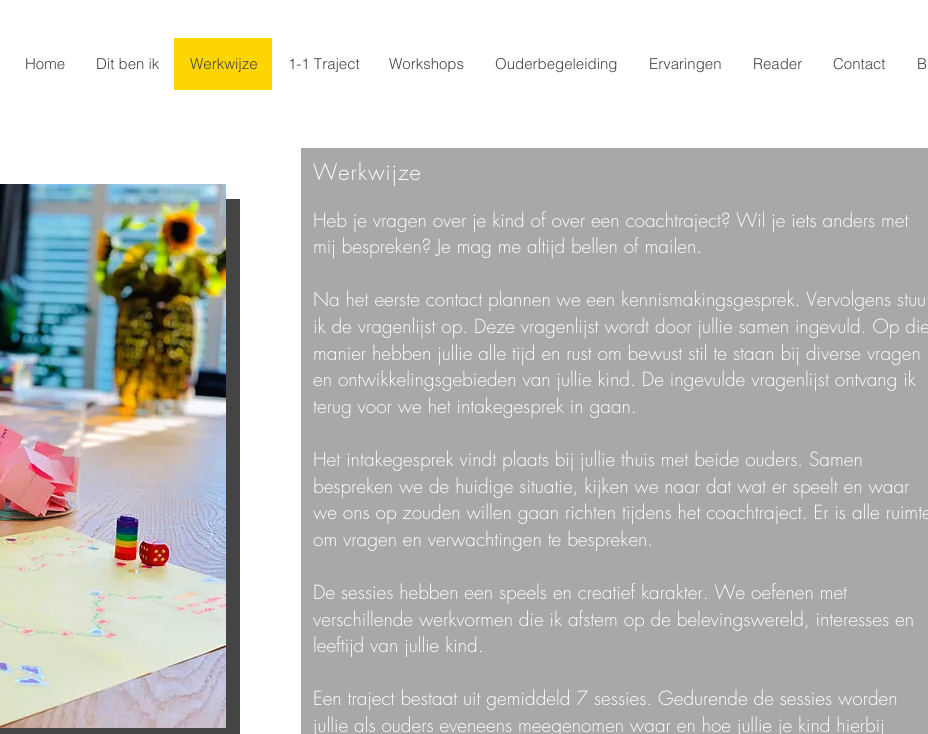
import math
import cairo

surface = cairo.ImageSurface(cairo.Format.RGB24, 928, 734)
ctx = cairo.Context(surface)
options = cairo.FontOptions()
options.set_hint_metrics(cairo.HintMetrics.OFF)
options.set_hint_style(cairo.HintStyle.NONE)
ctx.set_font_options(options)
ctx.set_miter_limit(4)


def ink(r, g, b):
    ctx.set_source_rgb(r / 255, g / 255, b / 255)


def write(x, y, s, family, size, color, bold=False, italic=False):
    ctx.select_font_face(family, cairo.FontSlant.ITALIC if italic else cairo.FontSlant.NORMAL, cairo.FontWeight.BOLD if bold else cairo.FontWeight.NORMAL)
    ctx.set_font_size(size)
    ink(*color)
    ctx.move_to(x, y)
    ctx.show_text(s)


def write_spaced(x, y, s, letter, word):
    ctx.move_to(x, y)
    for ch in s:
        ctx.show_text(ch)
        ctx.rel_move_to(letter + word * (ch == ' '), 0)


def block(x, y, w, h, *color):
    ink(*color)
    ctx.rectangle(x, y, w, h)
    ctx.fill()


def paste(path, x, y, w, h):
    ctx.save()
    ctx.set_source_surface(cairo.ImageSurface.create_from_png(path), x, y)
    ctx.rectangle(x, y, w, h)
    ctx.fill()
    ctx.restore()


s1 = dict(family="helvetica Light", size=15, color=(68, 68, 68))
s2 = dict(family="futura Light", size=19, color=(255, 255, 255))

ink(255, 255, 255)
ctx.paint()
write(25, 69, "Home", **s1)
write(96, 69, "Dit ben ik", **s1)
block(174, 38, 98, 52, 255, 213, 0)
write(190, 69, "Werkwijze", **s1)
write(288, 69, "1-1 Traject", **s1)
write(389, 69, "Workshops", **s1)
write(495, 69, "Ouderbegeleiding", **s1)
write(649, 69, "Ervaringen", **s1)
write(753, 69, "Reader", **s1)
write(833, 69, "Contact", **s1)
write(917, 69, "B", **s1)
block(301, 148, 627, 586, 168, 168, 168)
block(0, 199, 240, 535, 68, 68, 68)
paste("pic1.png", 0, 184, 226, 544)
ctx.select_font_face("futura Light")
ctx.set_font_size(22)
ink(255, 255, 255)
write_spaced(313, 180, "Werkwijze", 1, 0)
write(313, 227, "Heb je vragen over je kind of over een coachtraject? Wil je iets anders met", **s2)
write(313, 253, "mij bespreken? Je mag me altijd bellen of mailen.", **s2)
write(313, 306, "Na het eerste contact plannen we een kennismakingsgesprek. Vervolgens stuu", **s2)
write(313, 333, "ik de vragenlijst op. Deze vragenlijst wordt door jullie samen ingevuld. Op die", **s2)
write(313, 360, "manier hebben jullie alle tijd en rust om bewust stil te staan bij diverse vragen", **s2)
write(313, 386, "en ontwikkelingsgebieden van jullie kind. De ingevulde vragenlijst ontvang ik", **s2)
write(313, 413, "terug voor we het intakegesprek in gaan.", **s2)
write(313, 466, "Het intakegesprek vindt plaats bij jullie thuis met beide ouders. Samen", **s2)
write(313, 493, "bespreken we de huidige situatie, kijken we naar dat wat er speelt en waar", **s2)
write(313, 519, "we ons op zouden willen gaan richten tijdens het coachtraject. Er is alle ruimte", **s2)
write(313, 546, "om vragen en verwachtingen te bespreken.", **s2)
write(313, 599, "De sessies hebben een speels en creatief karakter. We oefenen met", **s2)
write(313, 626, "verschillende werkvormen die ik afstem op de belevingswereld, interesses en", **s2)
write(313, 652, "leeftijd van jullie kind.", **s2)
write(313, 705, "Een traject bestaat uit gemiddeld 7 sessies. Gedurende de sessies worden", **s2)
write(313, 732, "jullie als ouders eveneens meegenomen waar en hoe jullie je kind hierbij", **s2)
surface.write_to_png("screenshot.png")
